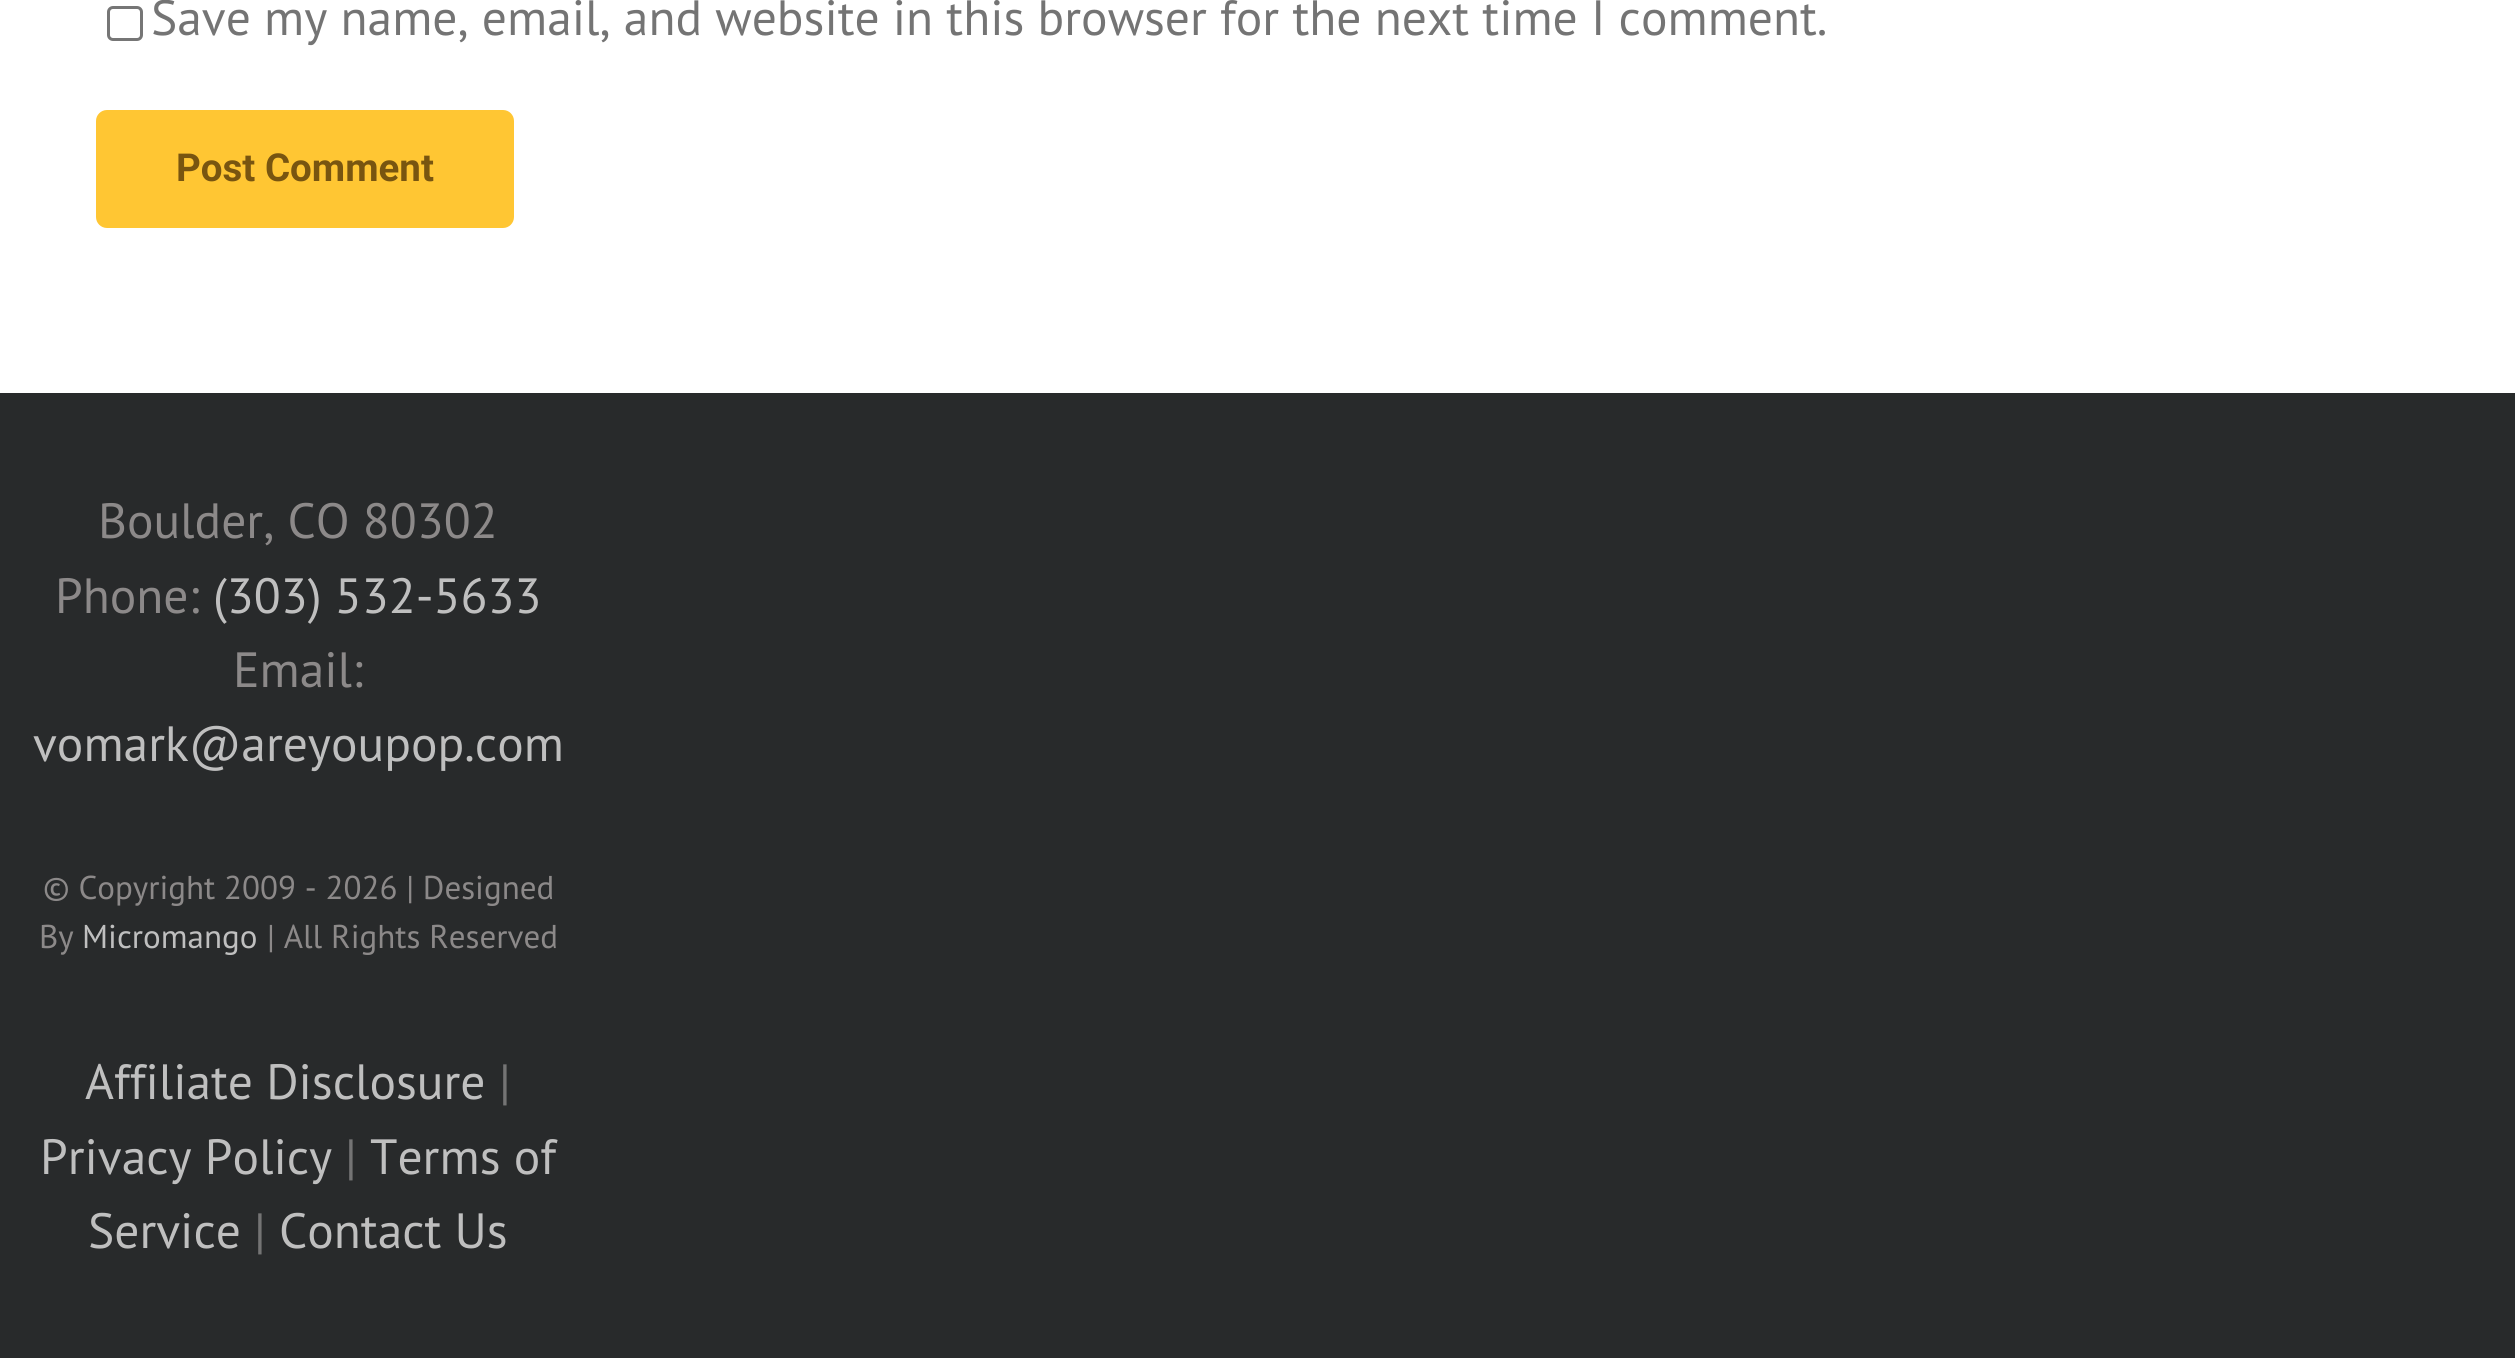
import math
import cairo

surface = cairo.ImageSurface(cairo.Format.RGB24, 2515, 1358)
ctx = cairo.Context(surface)
options = cairo.FontOptions()
options.set_hint_metrics(cairo.HintMetrics.OFF)
options.set_hint_style(cairo.HintStyle.NONE)
ctx.set_font_options(options)
ctx.set_miter_limit(4)


def ink(r, g, b):
    ctx.set_source_rgb(r / 255, g / 255, b / 255)


def write(x, y, s, family, size, color, bold=False, italic=False):
    ctx.select_font_face(family, cairo.FontSlant.ITALIC if italic else cairo.FontSlant.NORMAL, cairo.FontWeight.BOLD if bold else cairo.FontWeight.NORMAL)
    ctx.set_font_size(size)
    ink(*color)
    ctx.move_to(x, y)
    ctx.show_text(s)


def block(x, y, w, h, *color):
    ink(*color)
    ctx.rectangle(x, y, w, h)
    ctx.fill()


def round_path(x, y, w, h, r):
    ctx.new_sub_path()
    for i, (u, v) in enumerate([(x + w - r, y + h - r), (x + r, y + h - r), (x + r, y + r), (x + w - r, y + r)]):
        ctx.arc(u, v, r, i * math.pi / 2, (i + 1) * math.pi / 2)
    ctx.close_path()


s1 = dict(family="PT Sans", size=49.5, color=(116, 116, 116))
s2 = dict(family="Roboto", size=38.5, color=(120, 85, 16), bold=True)
s3 = dict(family="PT Sans", size=49.5, color=(140, 137, 137))
s4 = dict(family="PT Sans", size=49.5, color=(191, 191, 191))
s5 = dict(family="PT Sans", size=33, color=(140, 137, 137))
s6 = dict(family="PT Sans", size=33, color=(191, 191, 191))

ink(255, 255, 255)
ctx.paint()
round_path(108.5, 7.5, 33, 32, 4.5)
ink(118, 118, 118)
ctx.set_line_width(3)
ctx.stroke()
write(151, 35, "Save my name, email, and website in this browser for the next time I comment.", **s1)
ink(255, 198, 51)
round_path(96, 110, 418, 118, 11)
ctx.fill()
write(176, 181, "Post Comment", **s2)
block(0, 393, 2515, 965, 40, 42, 43)
write(98, 538, "Boulder, CO 80302", **s3)
write(55, 613, "Phone:", **s3)
write(213, 613, "(303) 532-5633", **s4)
write(233, 687, "Email:", **s3)
write(33, 761, "vomark@areyoupop.com", **s4)
write(43, 899, "© Copyright 2009 - 2026 | Designed", **s5)
write(39, 948, "By", **s5)
write(82, 948, "Micromango", **s6)
write(267, 948, "| All Rights Reserved", **s5)
write(85, 1099, "Affiliate Disclosure", **s4)
write(499, 1099, "|", **s1)
write(40, 1174, "Privacy Policy", **s4)
write(345, 1174, "|", **s1)
write(370, 1174, "Terms of", **s4)
write(88, 1248, "Service", **s4)
write(254, 1248, "|", **s1)
write(279, 1248, "Contact Us", **s4)
surface.write_to_png("screenshot.png")
